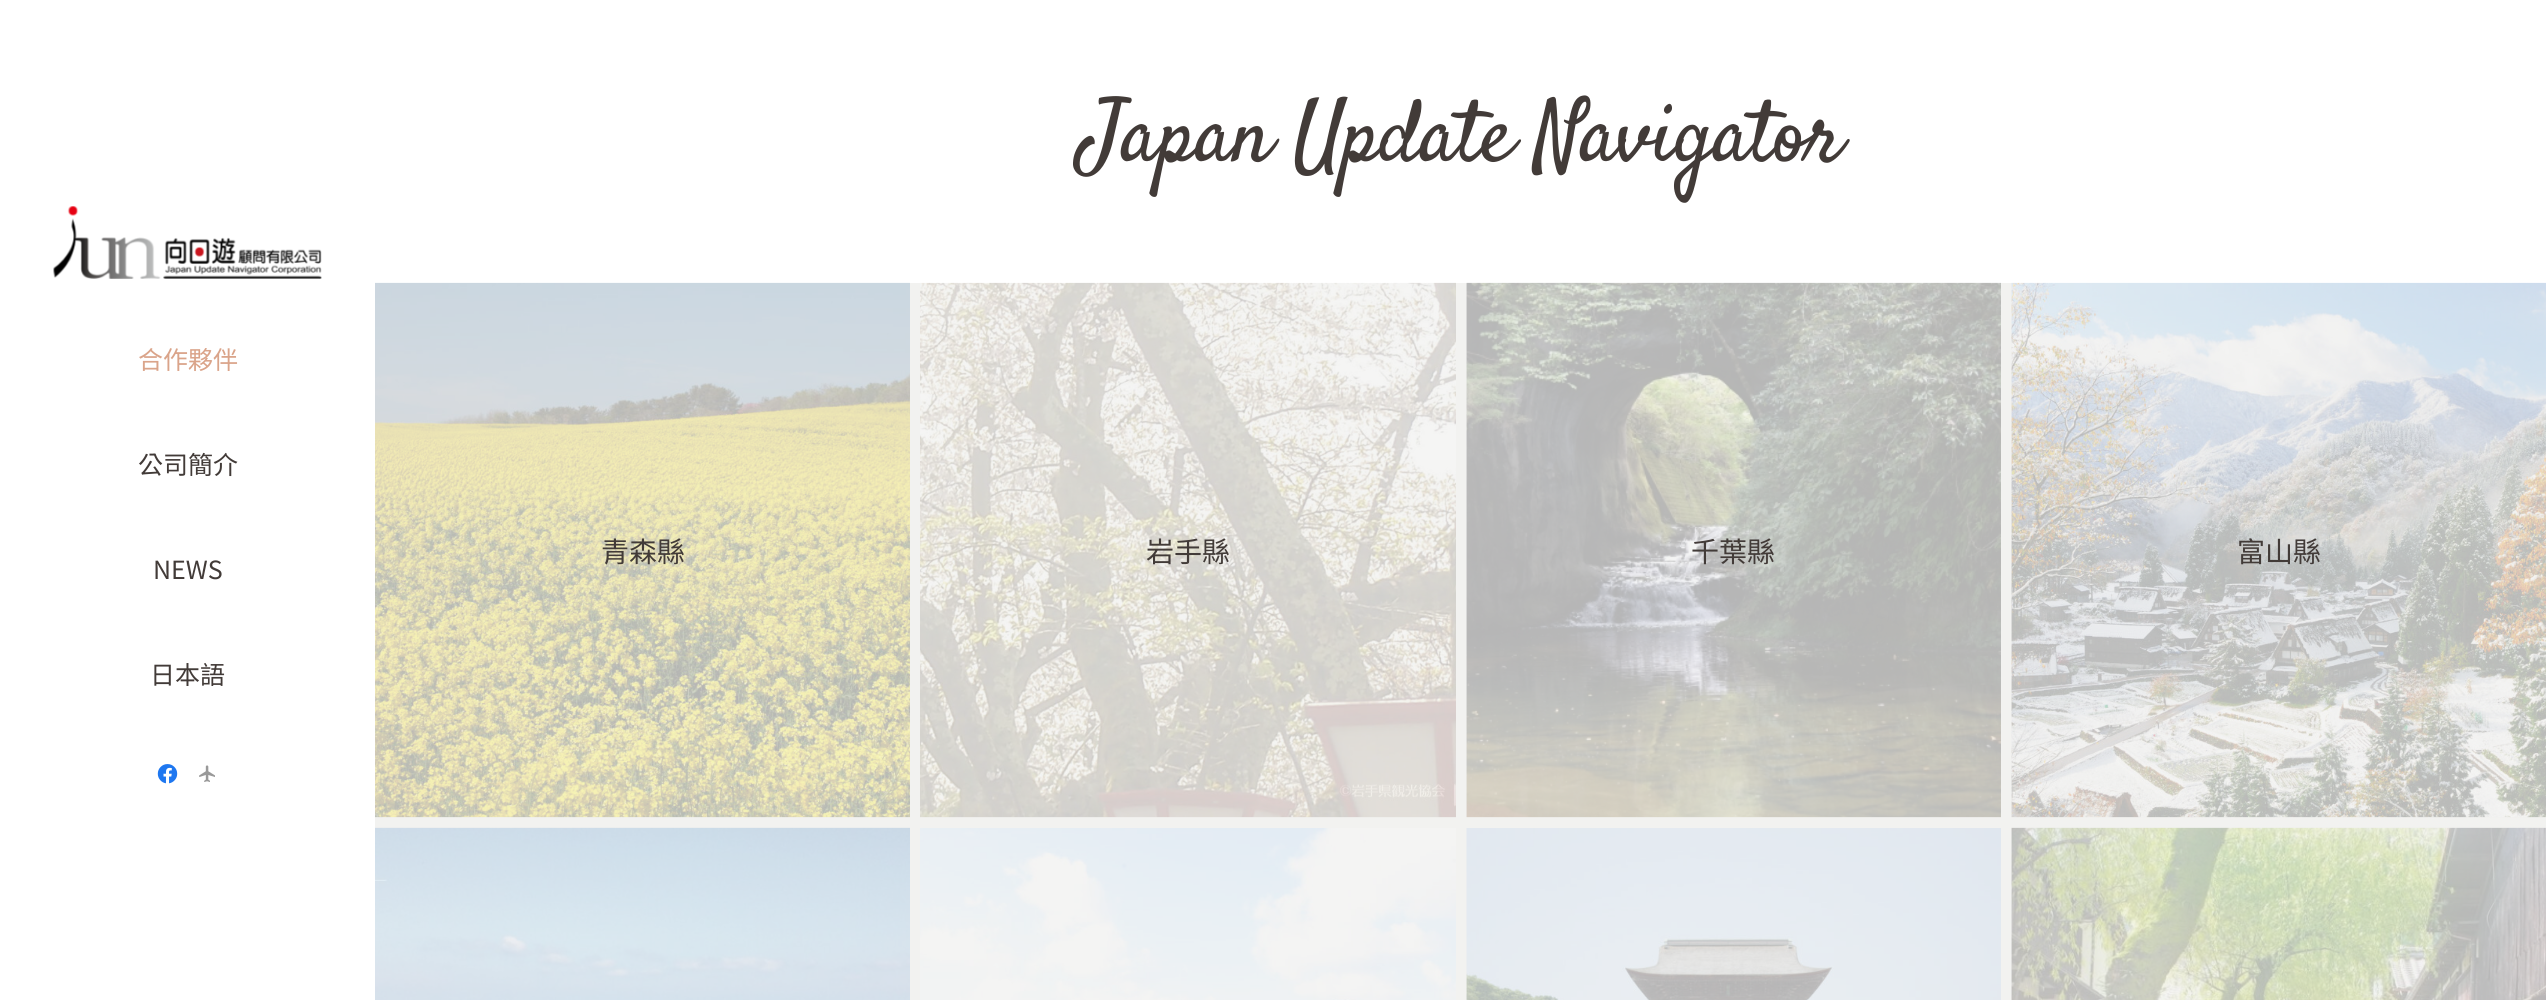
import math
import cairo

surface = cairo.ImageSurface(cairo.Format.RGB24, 2546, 1000)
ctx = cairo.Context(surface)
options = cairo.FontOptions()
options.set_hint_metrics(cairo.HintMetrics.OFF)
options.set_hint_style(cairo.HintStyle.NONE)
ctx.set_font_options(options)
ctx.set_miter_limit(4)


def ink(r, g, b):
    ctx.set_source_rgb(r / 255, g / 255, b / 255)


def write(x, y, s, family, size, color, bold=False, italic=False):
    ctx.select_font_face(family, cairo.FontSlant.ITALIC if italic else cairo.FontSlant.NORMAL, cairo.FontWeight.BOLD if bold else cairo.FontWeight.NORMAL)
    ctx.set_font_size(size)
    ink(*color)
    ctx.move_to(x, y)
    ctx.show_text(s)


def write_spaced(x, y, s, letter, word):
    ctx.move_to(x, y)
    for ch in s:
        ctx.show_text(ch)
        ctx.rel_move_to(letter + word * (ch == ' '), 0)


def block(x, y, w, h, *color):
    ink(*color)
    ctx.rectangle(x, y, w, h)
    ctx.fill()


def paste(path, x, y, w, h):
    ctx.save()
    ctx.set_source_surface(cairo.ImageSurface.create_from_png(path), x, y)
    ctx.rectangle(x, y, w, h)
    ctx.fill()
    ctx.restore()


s1 = dict(family="Noto Sans TC Thin", size=25, color=(218, 164, 138))
s2 = dict(family="Noto Sans TC Thin", size=25, color=(66, 59, 56))
s3 = dict(family="Noto Sans TC Thin", size=28, color=(66, 59, 56))

ink(255, 255, 255)
ctx.paint()
paste("pic1.png", 53, 206, 269, 73)
write(138, 369, "合作夥伴", **s1)
write(138, 474, "公司簡介", **s2)
write(153, 579, "NEWS", **s2)
write(150, 684, "日本語", **s2)
paste("pic2.png", 157, 764, 21, 20)
paste("pic3.png", 199, 765, 16, 17)
ctx.select_font_face("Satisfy")
ctx.set_font_size(87.5)
write_spaced(1080, 160, "Japan Update Navigator", -1.75, 0)
block(375, 283, 2171, 717, 242, 242, 240)
paste("pic4.png", 375, 282, 535, 536)
write(601, 562, "青森縣", **s3)
paste("pic5.png", 920, 282, 536, 536)
write(1146, 562, "岩手縣", **s3)
paste("pic6.png", 1466, 282, 535, 536)
write(1691, 562, "千葉縣", **s3)
paste("pic7.png", 2011, 282, 535, 536)
write(2237, 562, "富山縣", **s3)
paste("pic8.png", 375, 827, 535, 173)
paste("pic9.png", 920, 828, 536, 172)
paste("pic10.png", 1466, 828, 535, 172)
paste("pic11.png", 2011, 827, 535, 173)
surface.write_to_png("screenshot.png")
